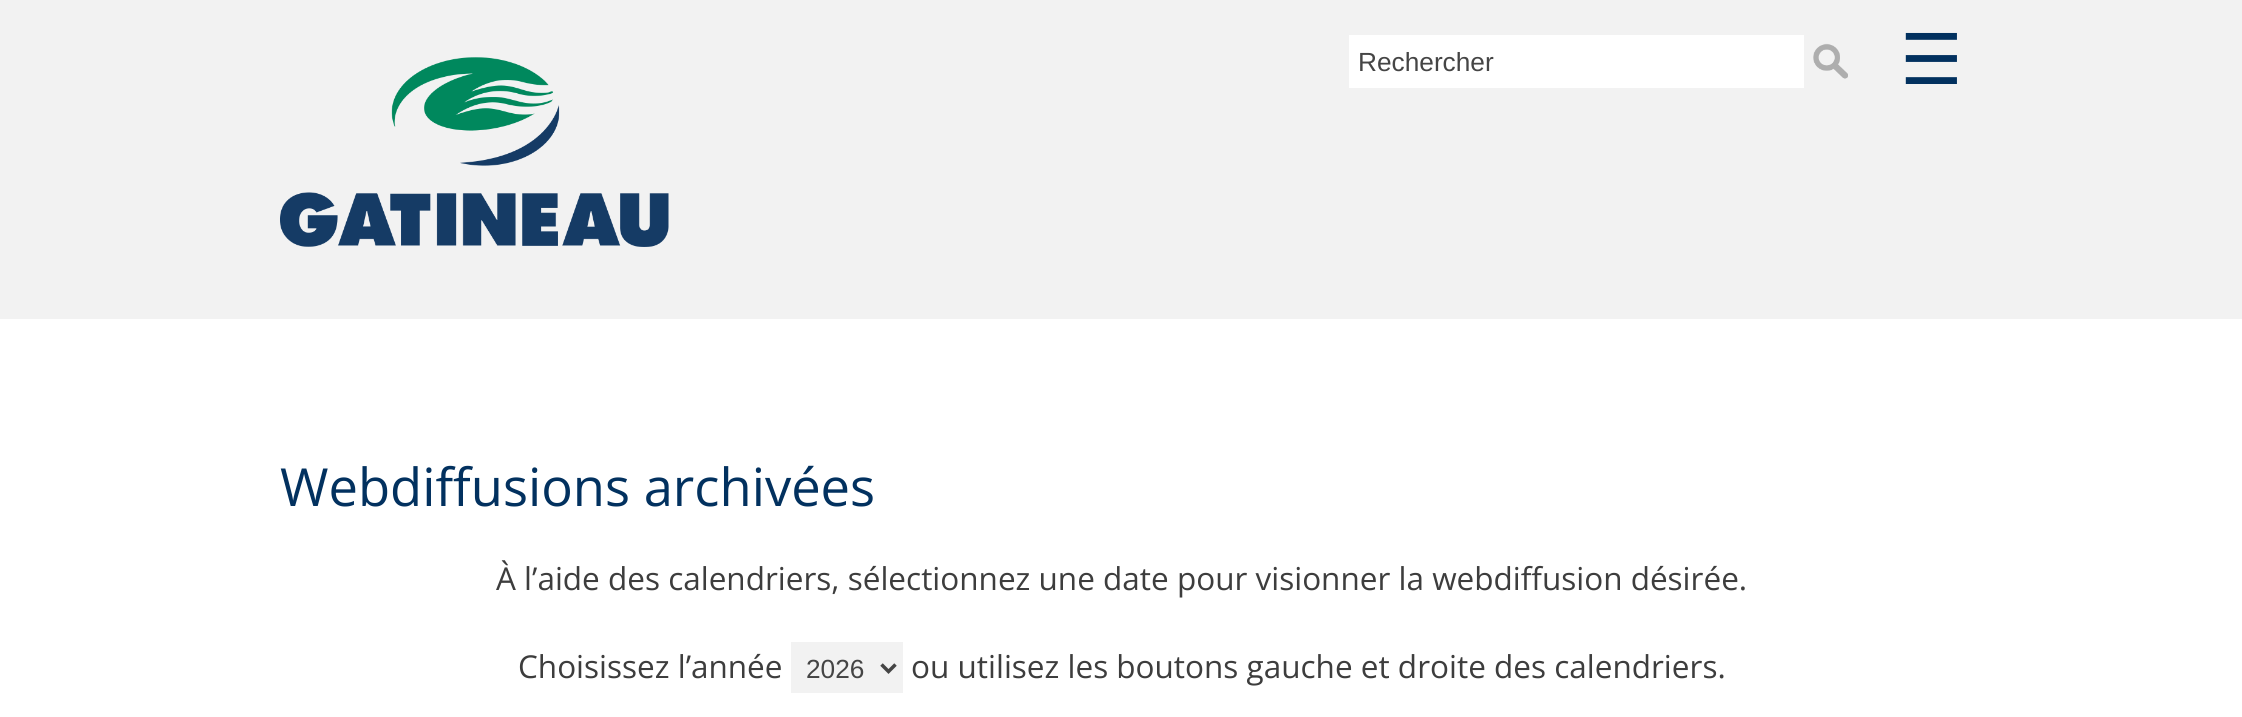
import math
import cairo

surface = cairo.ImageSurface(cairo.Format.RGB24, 2242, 717)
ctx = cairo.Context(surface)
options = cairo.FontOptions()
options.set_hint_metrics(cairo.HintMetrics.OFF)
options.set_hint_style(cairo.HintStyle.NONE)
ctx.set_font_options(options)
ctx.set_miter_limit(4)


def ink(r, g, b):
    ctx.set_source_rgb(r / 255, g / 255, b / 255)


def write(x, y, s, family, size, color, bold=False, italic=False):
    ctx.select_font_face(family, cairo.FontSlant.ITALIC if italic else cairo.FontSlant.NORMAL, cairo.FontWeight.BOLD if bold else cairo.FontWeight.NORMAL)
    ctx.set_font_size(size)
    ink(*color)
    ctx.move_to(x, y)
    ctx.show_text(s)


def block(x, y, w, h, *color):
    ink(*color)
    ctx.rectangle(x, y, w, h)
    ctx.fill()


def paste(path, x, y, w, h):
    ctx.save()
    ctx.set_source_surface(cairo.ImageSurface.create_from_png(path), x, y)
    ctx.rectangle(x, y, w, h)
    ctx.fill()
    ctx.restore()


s1 = dict(family="Liberation Sans", size=26.25, color=(69, 69, 69))
s2 = dict(family="DejaVu Sans", size=70, color=(2, 49, 95))
s3 = dict(family="Open Sans", size=52.5, color=(2, 49, 95))
s4 = dict(family="Open Sans", size=31.5, color=(61, 61, 61))

ink(255, 255, 255)
ctx.paint()
block(0, 0, 2242, 319, 242, 242, 242)
paste("pic1.png", 280, 57, 389, 190)
block(1349, 35, 455, 53, 255, 255, 255)
write(1358, 71, "Rechercher", **s1)
paste("pic2.png", 1813, 43, 35, 36)
write(1900, 84, "☰", **s2)
write(280, 506, "Webdiffusions archivées", **s3)
write(496, 590, "À l’aide des calendriers, sélectionnez une date pour visionner la webdiffusion désirée.", **s4)
write(518, 678, "Choisissez l’année", **s4)
block(791, 642, 112, 51, 242, 242, 242)
ctx.new_path()
ctx.move_to(881.5, 664.5)
ctx.line_to(888.5, 671.5)
ctx.line_to(895.5, 664.5)
ink(69, 69, 69)
ctx.set_line_width(3.5)
ctx.stroke()
write(806, 678, "2026", **s1)
write(911, 678, "ou utilisez les boutons gauche et droite des calendriers.", **s4)
surface.write_to_png("screenshot.png")
